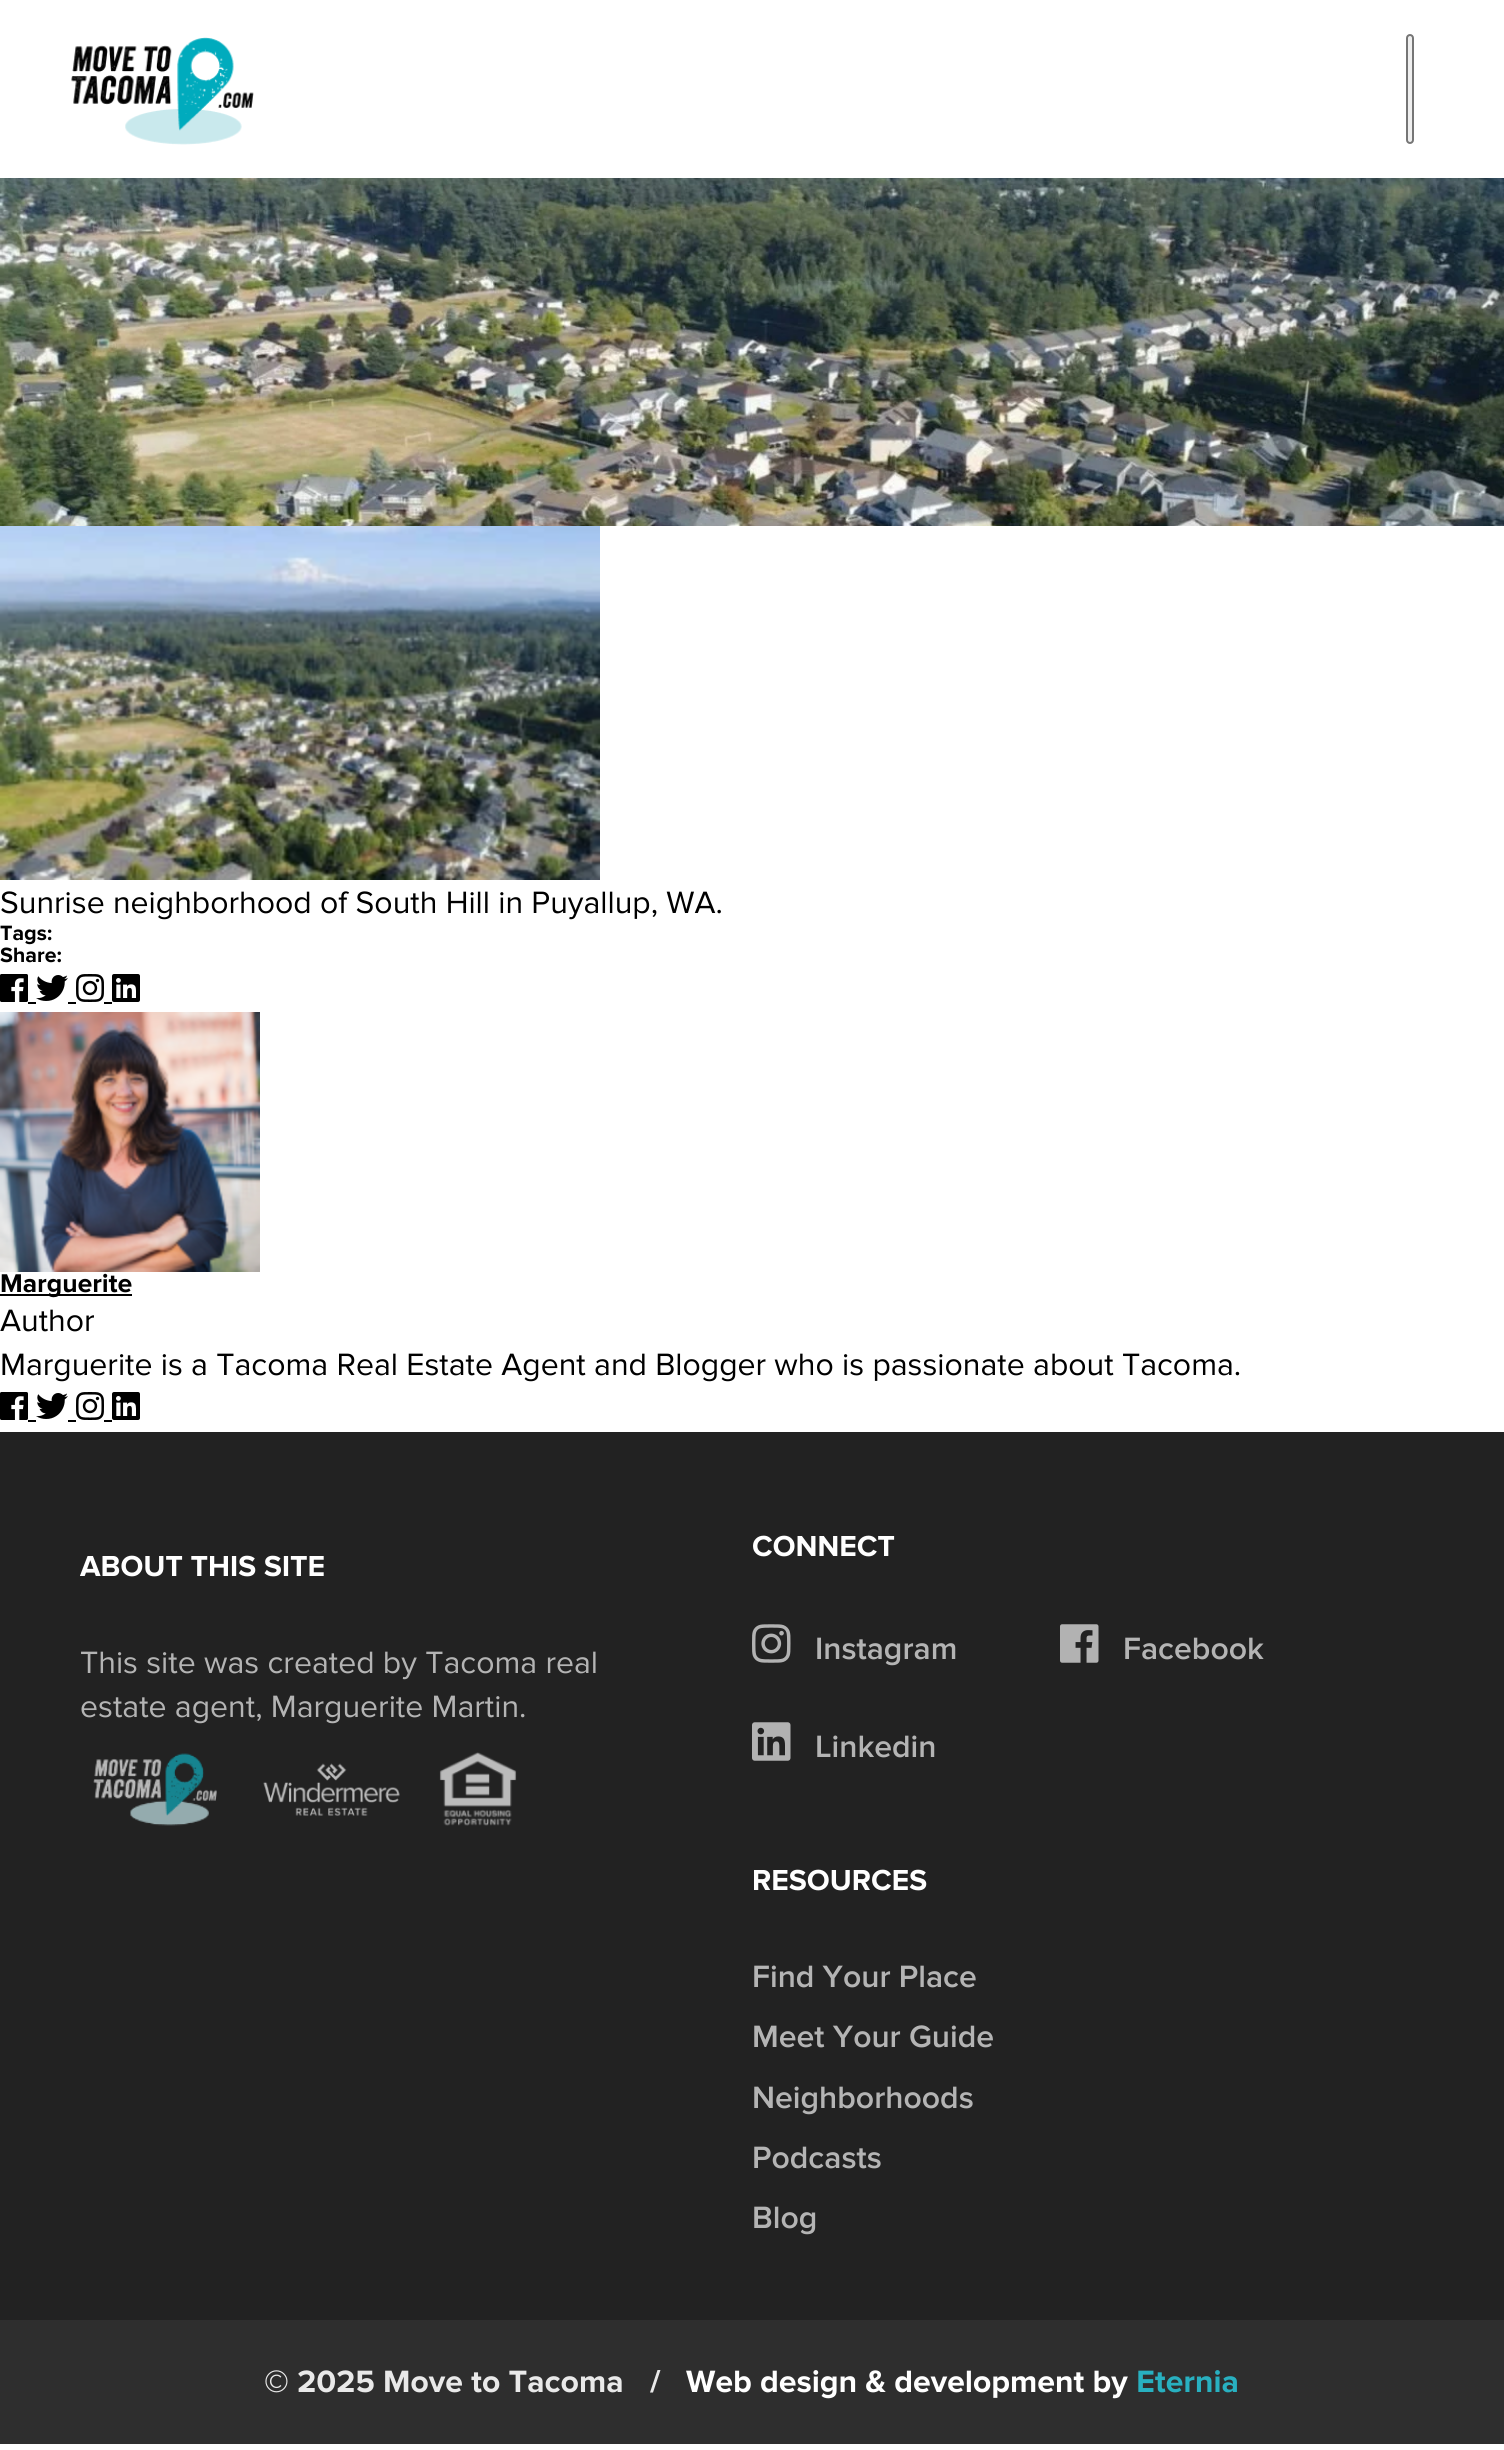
import math
import cairo

surface = cairo.ImageSurface(cairo.Format.RGB24, 1504, 2450)
ctx = cairo.Context(surface)
options = cairo.FontOptions()
options.set_hint_metrics(cairo.HintMetrics.OFF)
options.set_hint_style(cairo.HintStyle.NONE)
ctx.set_font_options(options)
ctx.set_miter_limit(4)


def ink(r, g, b):
    ctx.set_source_rgb(r / 255, g / 255, b / 255)


def write(x, y, s, family, size, color, bold=False, italic=False):
    ctx.select_font_face(family, cairo.FontSlant.ITALIC if italic else cairo.FontSlant.NORMAL, cairo.FontWeight.BOLD if bold else cairo.FontWeight.NORMAL)
    ctx.set_font_size(size)
    ink(*color)
    ctx.move_to(x, y)
    ctx.show_text(s)


def block(x, y, w, h, *color):
    ink(*color)
    ctx.rectangle(x, y, w, h)
    ctx.fill()


def round_path(x, y, w, h, r):
    ctx.new_sub_path()
    for i, (u, v) in enumerate([(x + w - r, y + h - r), (x + r, y + h - r), (x + r, y + r), (x + w - r, y + r)]):
        ctx.arc(u, v, r, i * math.pi / 2, (i + 1) * math.pi / 2)
    ctx.close_path()


def paste(path, x, y, w, h):
    ctx.save()
    ctx.set_source_surface(cairo.ImageSurface.create_from_png(path), x, y)
    ctx.rectangle(x, y, w, h)
    ctx.fill()
    ctx.restore()


s1 = dict(family="Proxima Nova", size=32, color=(0, 0, 0))
s2 = dict(family="Proxima Nova", size=32, color=(180, 180, 180))
s3 = dict(family="Proxima Nova SemiBold", size=32, color=(180, 180, 180))

ink(255, 255, 255)
ctx.paint()
paste("pic1.png", 71, 37, 183, 108)
ink(239, 239, 239)
round_path(1407, 35, 6, 108, 3)
ctx.fill_preserve()
ink(118, 118, 118)
ctx.stroke()
paste("pic2.png", 0, 178, 1504, 348)
paste("pic3.png", 0, 526, 600, 354)
write(0, 913, "Sunrise neighborhood of South Hill in Puyallup, WA.", **s1)
paste("pic4.png", 0, 925, 52, 20)
paste("pic5.png", 0, 947, 61, 16)
paste("pic6.png", 0, 974, 28, 28)
block(28, 1002, 8, 2, 0, 0, 0)
paste("pic7.png", 36, 975, 32, 26)
block(68, 1002, 8, 2, 0, 0, 0)
paste("pic8.png", 76, 974, 28, 28)
block(104, 1002, 8, 2, 0, 0, 0)
paste("pic9.png", 112, 974, 28, 28)
paste("pic10.png", 0, 1012, 260, 260)
block(0, 1294, 132, 2, 0, 0, 0)
paste("pic11.png", 1, 1273, 131, 25)
write(0, 1331, "Author", **s1)
write(0, 1375, "Marguerite is a Tacoma Real Estate Agent and Blogger who is passionate about Tacoma.", **s1)
paste("pic6.png", 0, 1392, 28, 28)
block(28, 1420, 8, 2, 0, 0, 0)
paste("pic7.png", 36, 1393, 32, 26)
block(68, 1420, 8, 2, 0, 0, 0)
paste("pic8.png", 76, 1392, 28, 28)
block(104, 1420, 8, 2, 0, 0, 0)
paste("pic9.png", 112, 1392, 28, 28)
block(0, 1432, 1504, 888, 34, 34, 34)
paste("pic12.png", 80, 1555, 244, 22)
write(80, 1673, "This site was created by Tacoma real", **s2)
write(80, 1717, "estate agent, Marguerite Martin.", **s2)
paste("pic13.png", 93, 1753, 124, 73)
paste("pic14.png", 263, 1763, 137, 53)
paste("pic15.png", 439, 1752, 78, 74)
paste("pic16.png", 753, 1535, 142, 22)
paste("pic17.png", 752, 1624, 39, 39)
write(815, 1659, "Instagram", **s3)
paste("pic18.png", 1060, 1624, 39, 39)
write(1123, 1659, "Facebook", **s3)
paste("pic19.png", 752, 1722, 39, 39)
write(815, 1757, "Linkedin", **s3)
paste("pic20.png", 754, 1869, 173, 22)
write(752, 1987, "Find Your Place", **s3)
write(752, 2047, "Meet Your Guide", **s3)
write(752, 2108, "Neighborhoods", **s3)
write(752, 2168, "Podcasts", **s3)
write(752, 2228, "Blog", **s3)
block(0, 2320, 1504, 124, 46, 46, 46)
paste("pic21.png", 265, 2370, 357, 23)
ink(233, 233, 233)
ctx.new_path()
ctx.move_to(653, 2392.5)
ctx.line_to(650, 2392.5)
ctx.line_to(657.5, 2370)
ctx.line_to(660.5, 2370)
ctx.close_path()
ctx.fill()
paste("pic22.png", 686, 2370, 442, 29)
paste("pic23.png", 1138, 2370, 99, 23)
surface.write_to_png("screenshot.png")
